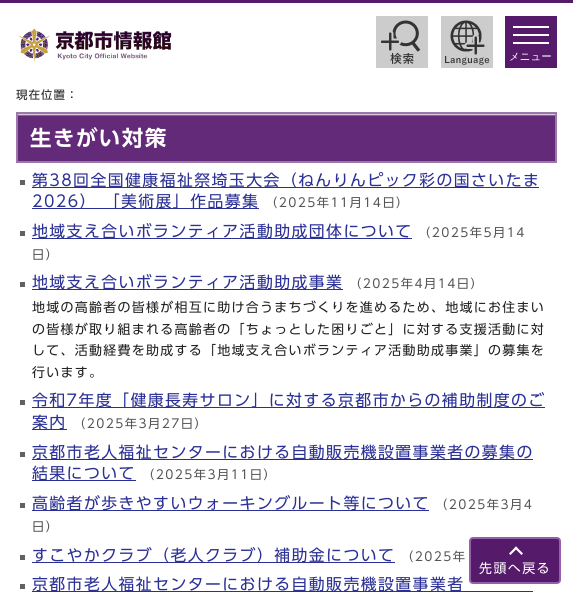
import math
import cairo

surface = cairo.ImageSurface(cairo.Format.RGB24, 573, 596)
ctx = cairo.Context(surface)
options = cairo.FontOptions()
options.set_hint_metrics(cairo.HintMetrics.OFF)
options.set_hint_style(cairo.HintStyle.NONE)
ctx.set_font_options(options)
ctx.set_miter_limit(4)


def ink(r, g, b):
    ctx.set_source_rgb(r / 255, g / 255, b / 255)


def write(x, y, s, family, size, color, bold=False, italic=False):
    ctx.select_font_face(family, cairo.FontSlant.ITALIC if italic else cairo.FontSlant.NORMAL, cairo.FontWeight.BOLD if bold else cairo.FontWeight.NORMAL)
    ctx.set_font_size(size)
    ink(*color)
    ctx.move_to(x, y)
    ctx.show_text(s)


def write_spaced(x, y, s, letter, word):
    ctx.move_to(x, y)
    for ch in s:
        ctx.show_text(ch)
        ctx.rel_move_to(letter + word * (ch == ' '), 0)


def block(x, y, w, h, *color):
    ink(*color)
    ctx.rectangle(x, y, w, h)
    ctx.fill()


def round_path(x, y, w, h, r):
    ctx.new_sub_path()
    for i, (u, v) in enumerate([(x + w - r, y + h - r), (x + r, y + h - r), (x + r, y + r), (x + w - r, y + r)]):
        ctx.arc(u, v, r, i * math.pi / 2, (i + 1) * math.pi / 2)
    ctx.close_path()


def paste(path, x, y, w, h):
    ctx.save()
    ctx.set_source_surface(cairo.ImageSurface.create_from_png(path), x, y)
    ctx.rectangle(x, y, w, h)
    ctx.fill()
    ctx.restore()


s1 = dict(family="WenQuanYi Zen Hei Medium", size=10.5, color=(255, 255, 255))

ink(255, 255, 255)
ctx.paint()
block(0, 0, 573, 3, 85, 26, 106)
paste("pic1.png", 18, 28, 154, 35)
paste("pic2.png", 376, 16, 52, 52)
paste("pic3.png", 441, 16, 52, 52)
block(505, 16, 52, 52, 85, 26, 106)
block(513, 34, 36, 2, 255, 255, 255)
block(513, 26, 36, 2, 255, 255, 255)
block(513, 42, 36, 2, 255, 255, 255)
write(509, 60, "メニュー", **s1)
ctx.select_font_face("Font")
ctx.set_font_size(11.5)
ink(34, 34, 34)
write_spaced(16, 99, "現在位置：", 1, 0)
block(18, 116, 537, 45, 98, 42, 120)
paste("pic4.png", 18, 114, 537, 2)
ctx.rectangle(17, 113, 539, 49)
ink(156, 120, 170)
ctx.stroke()
ctx.select_font_face("Font SemiBold")
ctx.set_font_size(21.5)
ink(255, 255, 255)
write_spaced(30, 146, "生きがい対策", 1.45, 0)
block(20, 180, 5, 5, 97, 97, 97)
block(32, 187, 507, 1, 43, 48, 149)
ctx.select_font_face("Font")
ctx.set_font_size(15.85)
write_spaced(32, 186, "第38回全国健康福祉祭埼玉大会（ねんりんピック彩の国さいたま", 1.45, 0)
block(32, 208, 227, 1, 43, 48, 149)
write_spaced(32, 207, "2026） 「美術展」作品募集", 1.45, 0)
ctx.set_font_size(12.25)
ink(85, 85, 85)
write_spaced(265, 207, "（2025年11月14日）", 1.45, 0)
block(20, 231, 5, 5, 97, 97, 97)
block(32, 238, 380, 1, 43, 48, 149)
ctx.set_font_size(15.85)
write_spaced(32, 237, "地域支え合いボランティア活動助成団体について", 1.45, 0)
ctx.set_font_size(12.25)
ink(85, 85, 85)
write_spaced(418, 237, "（2025年5月14", 1.45, 0)
write_spaced(32, 259, "日）", 1.45, 0)
block(20, 282, 5, 5, 97, 97, 97)
block(32, 289, 311, 1, 43, 48, 149)
ctx.set_font_size(15.85)
write_spaced(32, 288, "地域支え合いボランティア活動助成事業", 1.45, 0)
ctx.set_font_size(12.25)
ink(85, 85, 85)
write_spaced(349, 288, "（2025年4月14日）", 1.45, 0)
ctx.set_font_size(12.95)
ink(34, 34, 34)
write_spaced(32, 312, "地域の高齢者の皆様が相互に助け合うまちづくりを進めるため、地域にお住まい", 1.3, 0)
write_spaced(32, 334, "の皆様が取り組まれる高齢者の「ちょっとした困りごと」に対する支援活動に対", 1.3, 0)
write_spaced(32, 355, "して、活動経費を助成する「地域支え合いボランティア活動助成事業」の募集を", 1.3, 0)
write_spaced(32, 377, "行います。", 1.3, 0)
block(20, 400, 5, 5, 97, 97, 97)
block(32, 407, 513, 1, 43, 48, 149)
ctx.set_font_size(15.85)
write_spaced(32, 406, "令和7年度「健康長寿サロン」に対する京都市からの補助制度のご", 1.45, 0)
block(32, 429, 35, 1, 43, 48, 149)
write_spaced(32, 428, "案内", 1.45, 0)
ctx.set_font_size(12.25)
ink(85, 85, 85)
write_spaced(73, 428, "（2025年3月27日）", 1.45, 0)
block(20, 452, 5, 5, 97, 97, 97)
block(32, 459, 501, 1, 43, 48, 149)
ctx.set_font_size(15.85)
write_spaced(32, 458, "京都市老人福祉センターにおける自動販売機設置事業者の募集の", 1.45, 0)
block(32, 480, 104, 1, 43, 48, 149)
write_spaced(32, 479, "結果について", 1.45, 0)
ctx.set_font_size(12.25)
ink(85, 85, 85)
write_spaced(142, 479, "（2025年3月11日）", 1.45, 0)
block(20, 503, 5, 5, 97, 97, 97)
block(32, 510, 397, 1, 43, 48, 149)
ctx.set_font_size(15.85)
write_spaced(32, 509, "高齢者が歩きやすいウォーキングルート等について", 1.45, 0)
ctx.set_font_size(12.25)
ink(85, 85, 85)
write_spaced(435, 509, "（2025年3月4", 1.45, 0)
write_spaced(32, 531, "日）", 1.45, 0)
block(20, 555, 5, 5, 97, 97, 97)
block(32, 562, 363, 1, 43, 48, 149)
ctx.set_font_size(15.85)
write_spaced(32, 561, "すこやかクラブ（老人クラブ）補助金について", 1.45, 0)
ctx.set_font_size(12.25)
ink(85, 85, 85)
write_spaced(401, 561, "（2025年", 1.45, 0)
block(20, 584, 5, 5, 97, 97, 97)
block(32, 591, 501, 1, 43, 48, 149)
ctx.set_font_size(15.85)
write_spaced(32, 590, "京都市老人福祉センターにおける自動販売機設置事業者", 1.45, 0)
ink(85, 26, 106)
round_path(470, 538, 90, 45, 3)
ctx.fill_preserve()
ink(150, 95, 170)
ctx.stroke()
ink(255, 255, 255)
ctx.new_path()
ctx.move_to(510.5, 555)
ctx.line_to(509, 553.5)
ctx.line_to(516, 546.5)
ctx.line_to(517.5, 548)
ctx.close_path()
ctx.fill()
ctx.new_path()
ctx.move_to(521.5, 555)
ctx.line_to(514.5, 548)
ctx.line_to(516, 546.5)
ctx.line_to(523, 553.5)
ctx.close_path()
ctx.fill()
ctx.set_font_size(12.95)
write_spaced(479, 573, "先頭へ戻る", 1.45, 0)
surface.write_to_png("screenshot.png")
